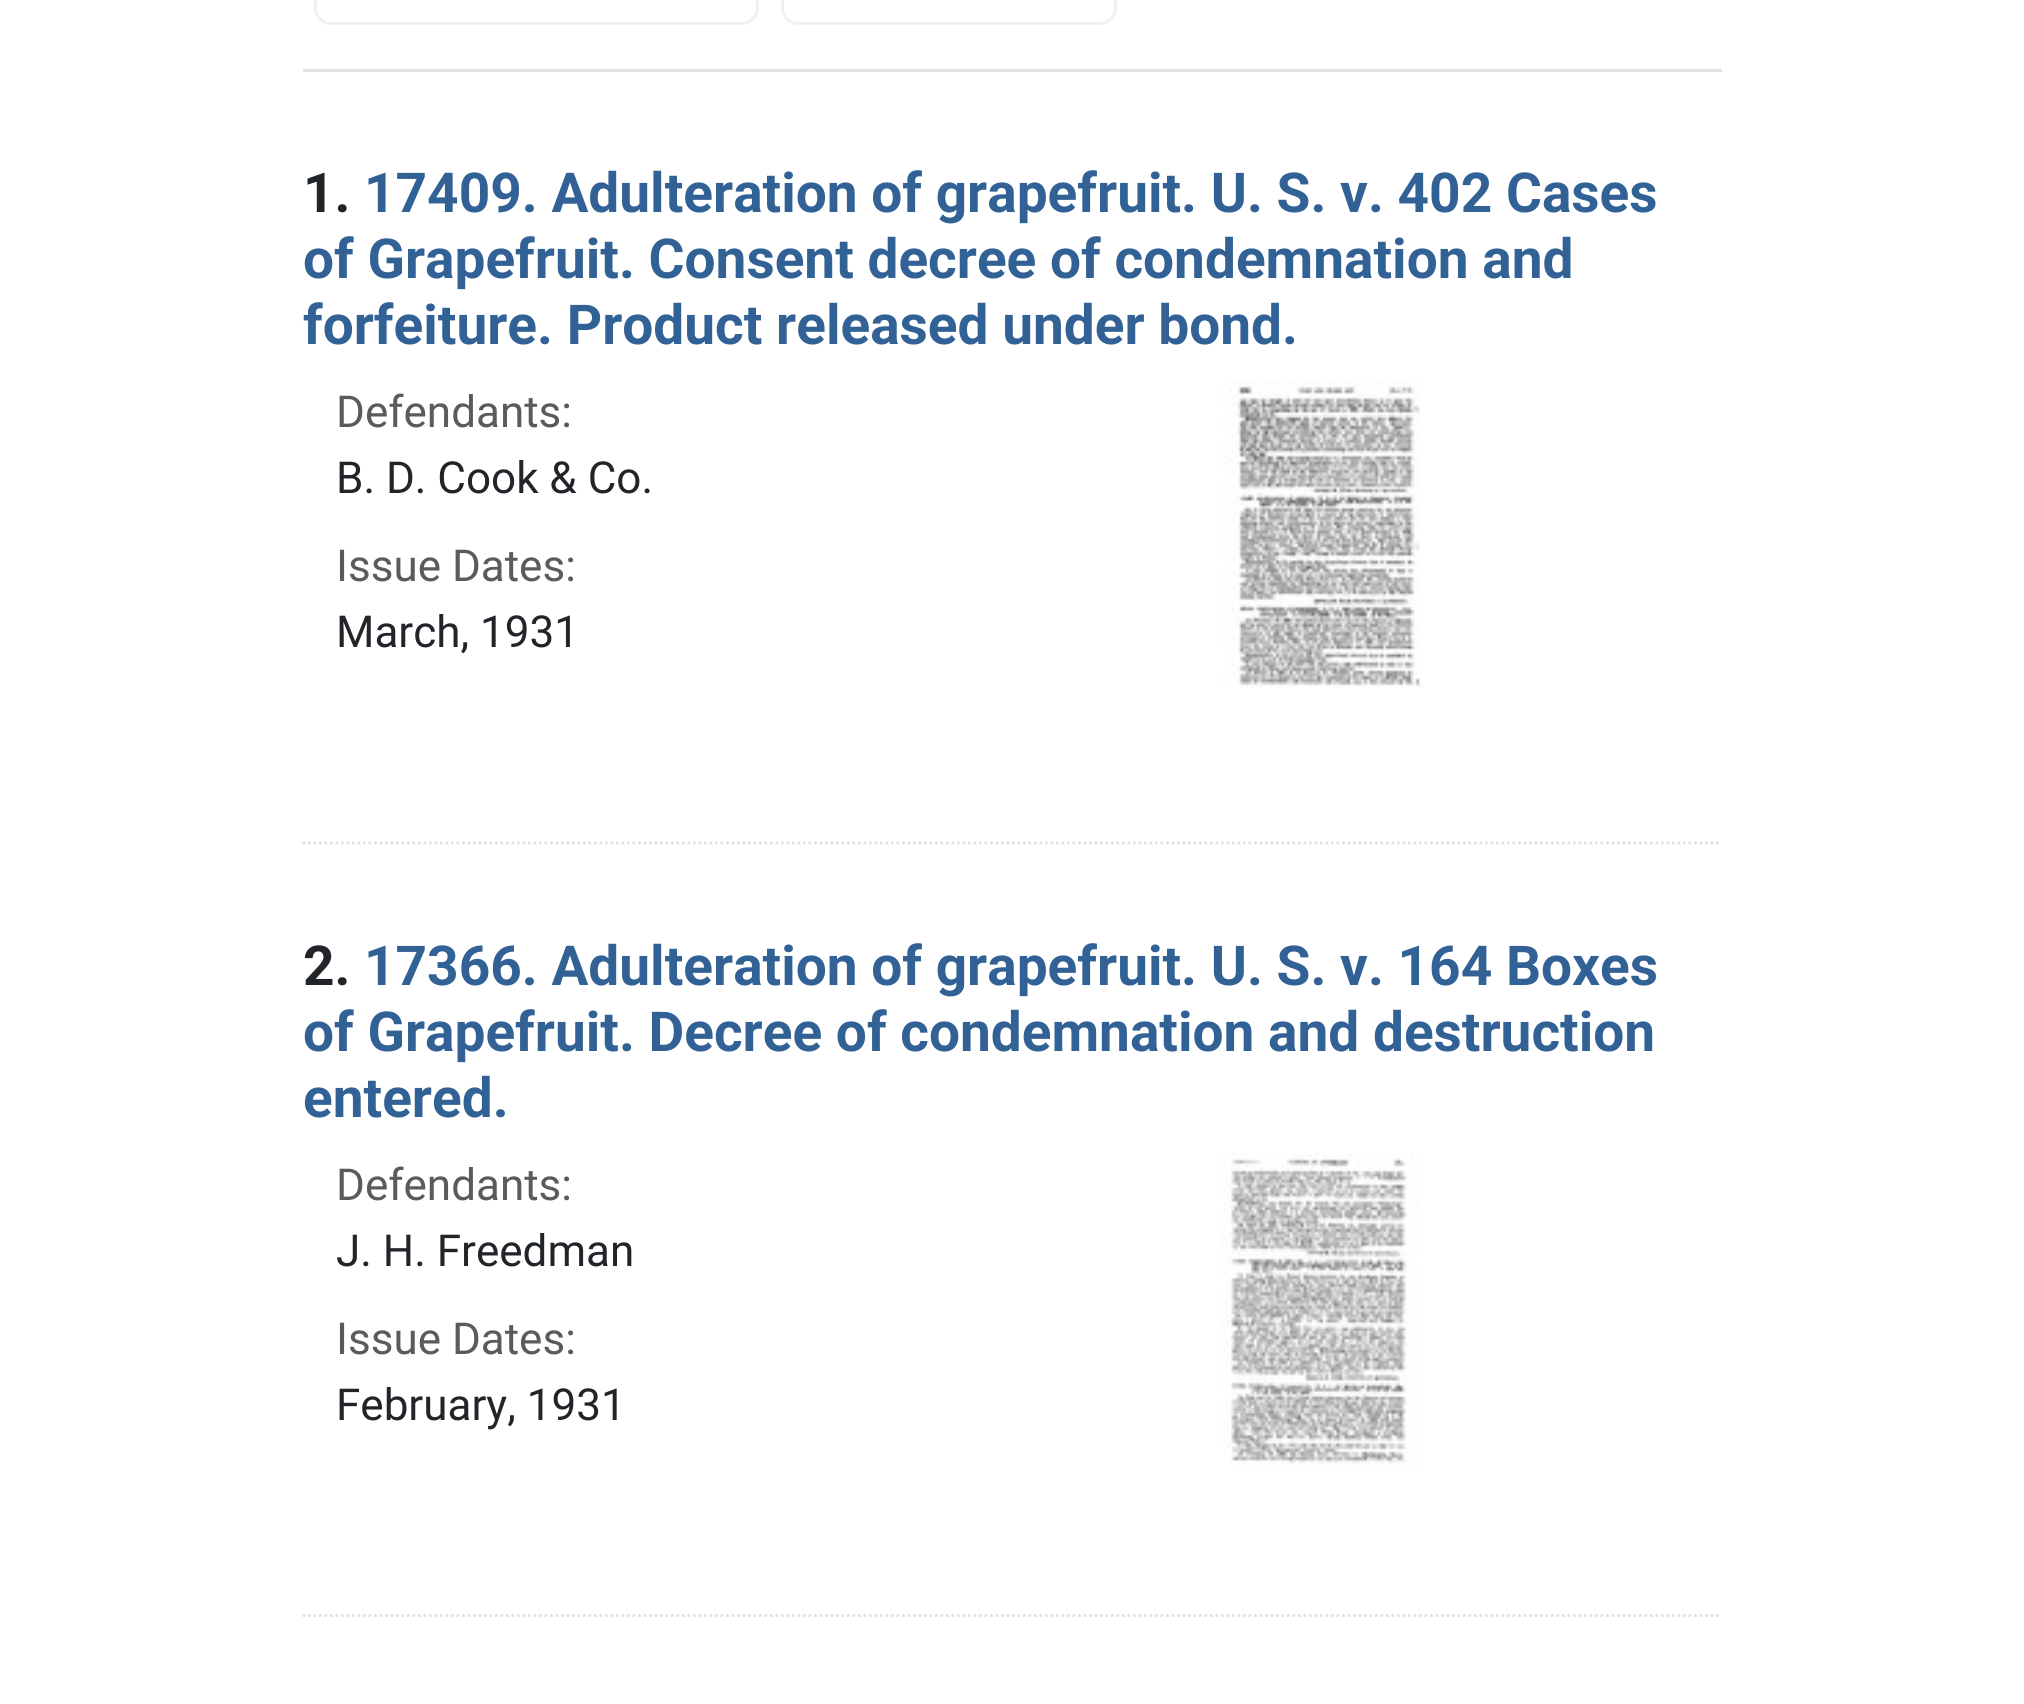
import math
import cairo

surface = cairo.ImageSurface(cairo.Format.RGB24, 2024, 1704)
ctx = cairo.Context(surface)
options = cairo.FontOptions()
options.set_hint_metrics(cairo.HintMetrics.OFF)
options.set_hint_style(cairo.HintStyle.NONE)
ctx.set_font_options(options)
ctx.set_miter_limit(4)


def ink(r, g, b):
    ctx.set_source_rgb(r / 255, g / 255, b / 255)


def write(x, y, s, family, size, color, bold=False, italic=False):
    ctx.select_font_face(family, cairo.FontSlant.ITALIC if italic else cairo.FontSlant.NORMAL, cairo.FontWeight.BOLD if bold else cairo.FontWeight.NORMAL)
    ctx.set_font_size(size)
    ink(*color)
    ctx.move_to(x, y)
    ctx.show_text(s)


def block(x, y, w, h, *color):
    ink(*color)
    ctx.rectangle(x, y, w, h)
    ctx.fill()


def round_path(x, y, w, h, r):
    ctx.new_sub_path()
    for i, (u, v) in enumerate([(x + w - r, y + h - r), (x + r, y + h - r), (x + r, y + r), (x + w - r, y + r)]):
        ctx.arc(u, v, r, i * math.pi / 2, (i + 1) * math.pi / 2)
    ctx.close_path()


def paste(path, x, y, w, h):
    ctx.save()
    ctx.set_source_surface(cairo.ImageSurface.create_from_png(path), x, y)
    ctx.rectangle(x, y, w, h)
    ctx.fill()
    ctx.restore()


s1 = dict(family="Roboto", size=55, color=(33, 37, 41), bold=True)
s2 = dict(family="Roboto", size=55, color=(50, 98, 149), bold=True)
s3 = dict(family="Roboto", size=44, color=(89, 92, 95))
s4 = dict(family="Roboto", size=44, color=(33, 37, 41))

ink(255, 255, 255)
ctx.paint()
block(303, 69, 1419, 3, 222, 226, 230)
round_path(315.5, -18.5, 442, 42, 15.5)
ink(237, 242, 247)
ctx.set_line_width(3)
ctx.stroke()
round_path(782.5, -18.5, 333, 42, 15.5)
ctx.stroke()
ctx.new_path()
ctx.move_to(302.5, 843)
ctx.line_to(1721.5, 843)
ink(222, 226, 230)
ctx.set_line_width(2.8)
ctx.set_dash([2.75, 2.75])
ctx.stroke()
write(303, 212, "1.", **s1)
write(364, 212, "17409. Adulteration of grapefruit. U. S. v. 402 Cases", **s2)
write(303, 278, "of Grapefruit. Consent decree of condemnation and", **s2)
write(303, 344, "forfeiture. Product released under bond.", **s2)
write(336, 427, "Defendants:", **s3)
write(336, 493, "B. D. Cook & Co.", **s4)
write(336, 581, "Issue Dates:", **s3)
write(336, 647, "March, 1931", **s4)
paste("pic1.png", 1222, 380, 201, 308)
ctx.new_path()
ctx.move_to(302.5, 1615.5)
ctx.line_to(1721.5, 1615.5)
ink(222, 226, 230)
ctx.stroke()
write(303, 985, "2.", **s1)
write(364, 985, "17366. Adulteration of grapefruit. U. S. v. 164 Boxes", **s2)
write(303, 1051, "of Grapefruit. Decree of condemnation and destruction", **s2)
write(303, 1117, "entered.", **s2)
write(336, 1200, "Defendants:", **s3)
write(336, 1266, "J. H. Freedman", **s4)
write(336, 1354, "Issue Dates:", **s3)
write(336, 1420, "February, 1931", **s4)
paste("pic2.png", 1222, 1152, 196, 318)
surface.write_to_png("screenshot.png")
